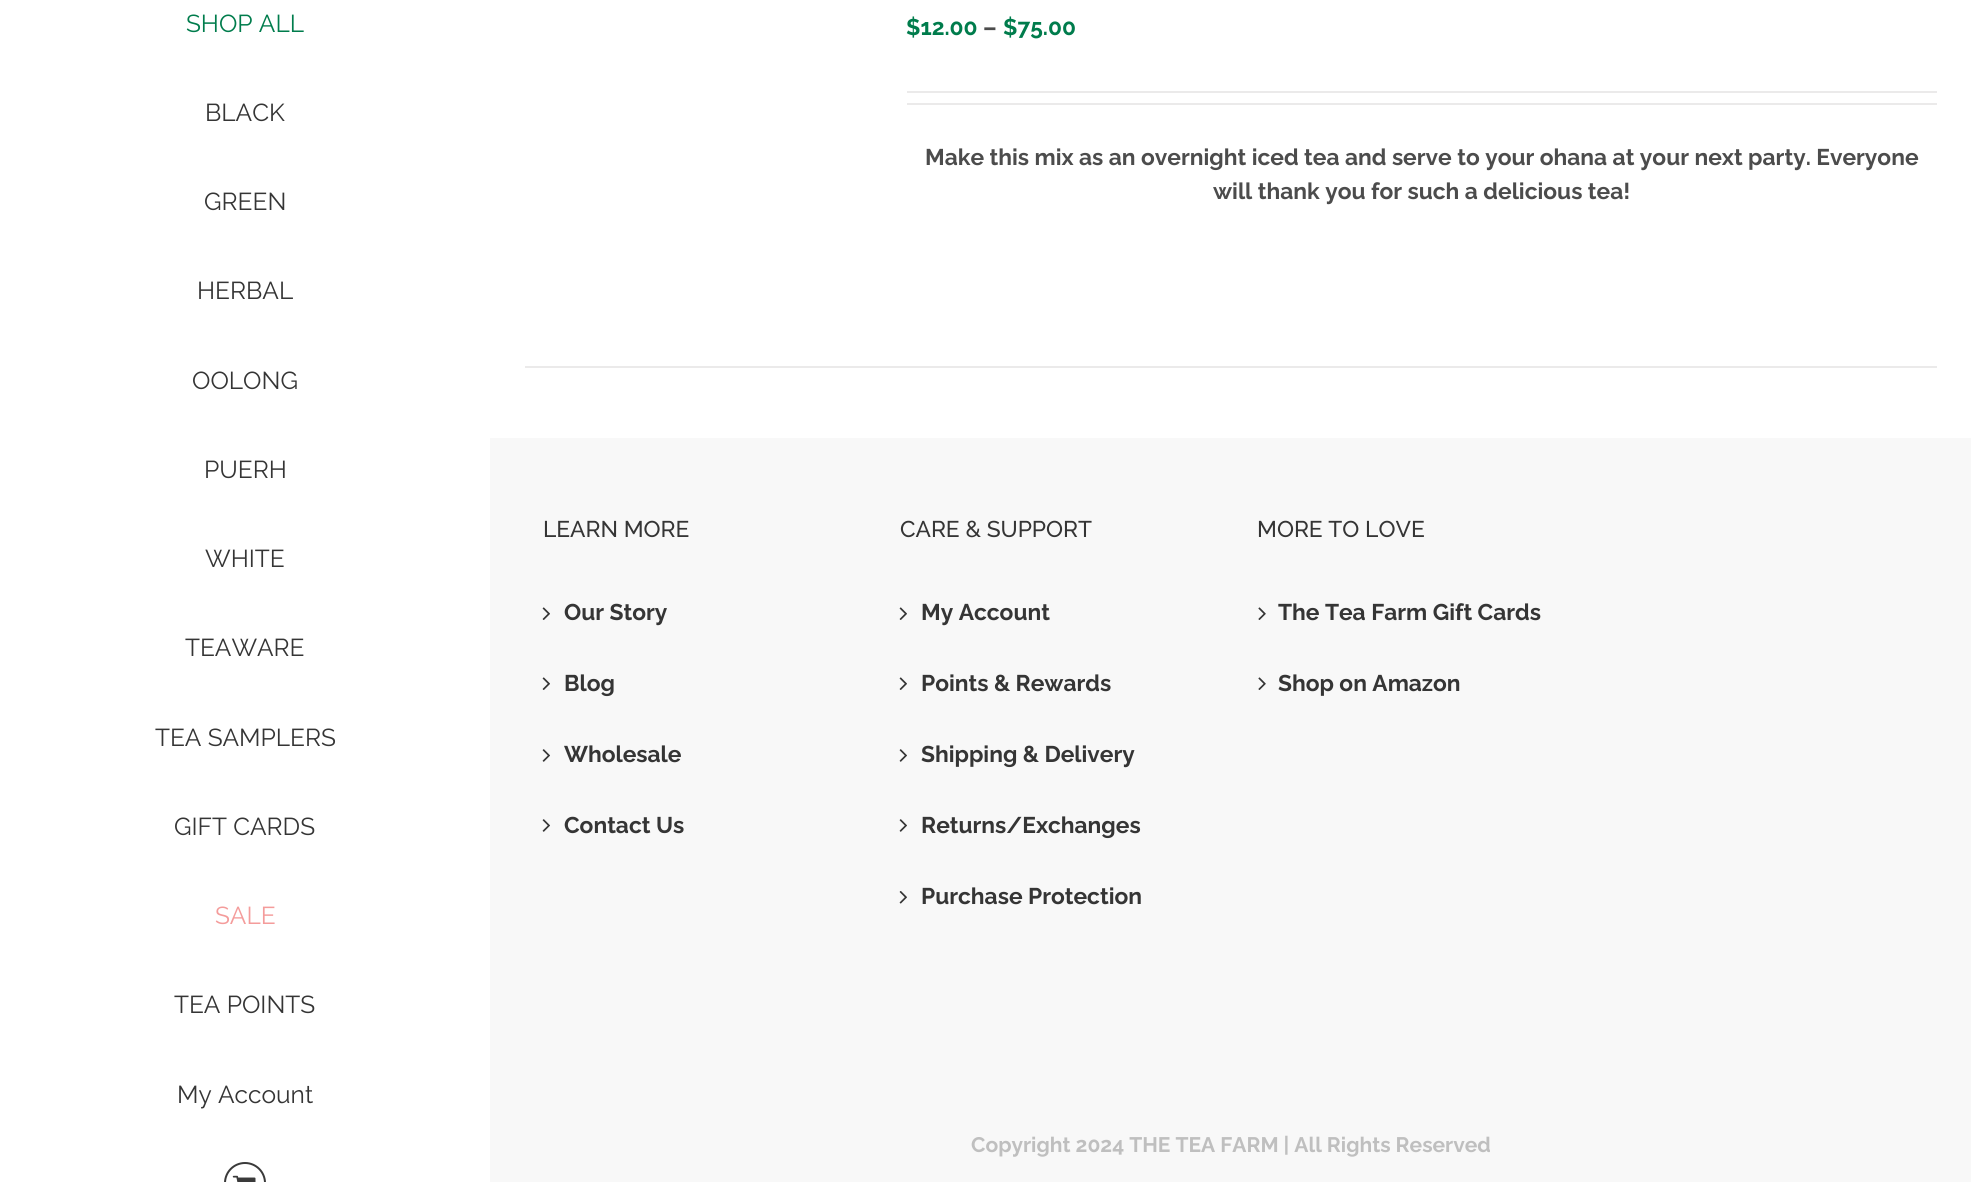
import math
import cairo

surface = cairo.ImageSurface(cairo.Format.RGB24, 1971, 1182)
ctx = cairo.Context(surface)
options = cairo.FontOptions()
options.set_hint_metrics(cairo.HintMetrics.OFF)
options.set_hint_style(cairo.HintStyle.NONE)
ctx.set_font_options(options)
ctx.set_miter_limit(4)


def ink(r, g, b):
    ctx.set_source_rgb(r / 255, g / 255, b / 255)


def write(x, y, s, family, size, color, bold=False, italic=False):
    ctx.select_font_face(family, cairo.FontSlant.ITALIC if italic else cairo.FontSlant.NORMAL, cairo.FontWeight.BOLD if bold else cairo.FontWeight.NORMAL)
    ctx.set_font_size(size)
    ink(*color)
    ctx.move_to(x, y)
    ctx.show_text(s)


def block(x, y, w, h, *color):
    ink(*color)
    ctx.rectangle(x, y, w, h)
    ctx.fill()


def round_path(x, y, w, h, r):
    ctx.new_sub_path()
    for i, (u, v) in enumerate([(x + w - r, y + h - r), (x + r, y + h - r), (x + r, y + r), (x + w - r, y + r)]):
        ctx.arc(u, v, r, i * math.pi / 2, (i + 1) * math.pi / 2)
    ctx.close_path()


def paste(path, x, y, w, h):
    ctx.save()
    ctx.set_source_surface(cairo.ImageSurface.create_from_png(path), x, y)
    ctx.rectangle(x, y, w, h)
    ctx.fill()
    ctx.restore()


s1 = dict(family="Raleway", size=24.5, color=(0, 124, 76))
s2 = dict(family="Raleway", size=24.5, color=(53, 53, 53))
s3 = dict(family="Raleway", size=24.5, color=(244, 156, 155))
s4 = dict(family="Raleway", size=22.75, color=(0, 124, 76), bold=True)
s5 = dict(family="Raleway", size=22.75, color=(76, 76, 76), bold=True)
s6 = dict(family="Raleway Medium", size=22.75, color=(53, 53, 53))
s7 = dict(family="Raleway", size=22.75, color=(53, 53, 53), bold=True)
s8 = dict(family="Raleway", size=21, color=(191, 191, 191), bold=True)

ink(255, 255, 255)
ctx.paint()
write(186, 32, "SHOP ALL", **s1)
write(205, 121, "BLACK", **s2)
write(204, 210, "GREEN", **s2)
write(197, 299, "HERBAL", **s2)
write(192, 389, "OOLONG", **s2)
write(204, 478, "PUERH", **s2)
write(205, 567, "WHITE", **s2)
write(185, 656, "TEAWARE", **s2)
write(155, 746, "TEA SAMPLERS", **s2)
write(174, 835, "GIFT CARDS", **s2)
write(215, 924, "SALE", **s3)
write(174, 1013, "TEA POINTS", **s2)
write(177, 1103, "My Account", **s2)
round_path(225, 1163, 40, 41, 20)
ink(58, 58, 58)
ctx.stroke()
paste("pic1.png", 232, 1175, 24, 7)
block(525, 366, 1412, 2, 235, 234, 234)
write(906, 35, "$12.00", **s4)
write(983, 35, "–", **s5)
write(1003, 35, "$75.00", **s4)
block(907, 91, 1030, 2, 235, 234, 234)
block(907, 103, 1030, 2, 235, 234, 234)
write(925, 165, "Make this mix as an overnight iced tea and serve to your ohana at your next party. Everyone", **s5)
write(1213, 199, "will thank you for such a delicious tea!", **s5)
block(490, 438, 1481, 744, 248, 248, 248)
write(543, 537, "LEARN MORE", **s6)
paste("pic2.png", 542, 607, 8, 13)
write(564, 620, "Our Story", **s7)
paste("pic2.png", 542, 677, 8, 13)
write(564, 691, "Blog", **s7)
paste("pic3.png", 542, 749, 8, 13)
write(564, 762, "Wholesale", **s7)
paste("pic3.png", 542, 819, 8, 13)
write(564, 833, "Contact Us", **s7)
write(900, 537, "CARE & SUPPORT", **s6)
paste("pic2.png", 899, 607, 8, 13)
write(921, 620, "My Account", **s7)
paste("pic2.png", 899, 677, 8, 13)
write(921, 691, "Points & Rewards", **s7)
paste("pic3.png", 899, 749, 8, 13)
write(921, 762, "Shipping & Delivery", **s7)
paste("pic3.png", 899, 819, 8, 13)
write(921, 833, "Returns/Exchanges", **s7)
paste("pic4.png", 899, 891, 8, 13)
write(921, 904, "Purchase Protection", **s7)
write(1257, 537, "MORE TO LOVE", **s6)
paste("pic5.png", 1258, 607, 8, 13)
write(1278, 620, "The Tea Farm Gift Cards", **s7)
paste("pic5.png", 1258, 677, 8, 13)
write(1278, 691, "Shop on Amazon", **s7)
write(971, 1152, "Copyright 2024 THE TEA FARM | All Rights Reserved", **s8)
surface.write_to_png("screenshot.png")
